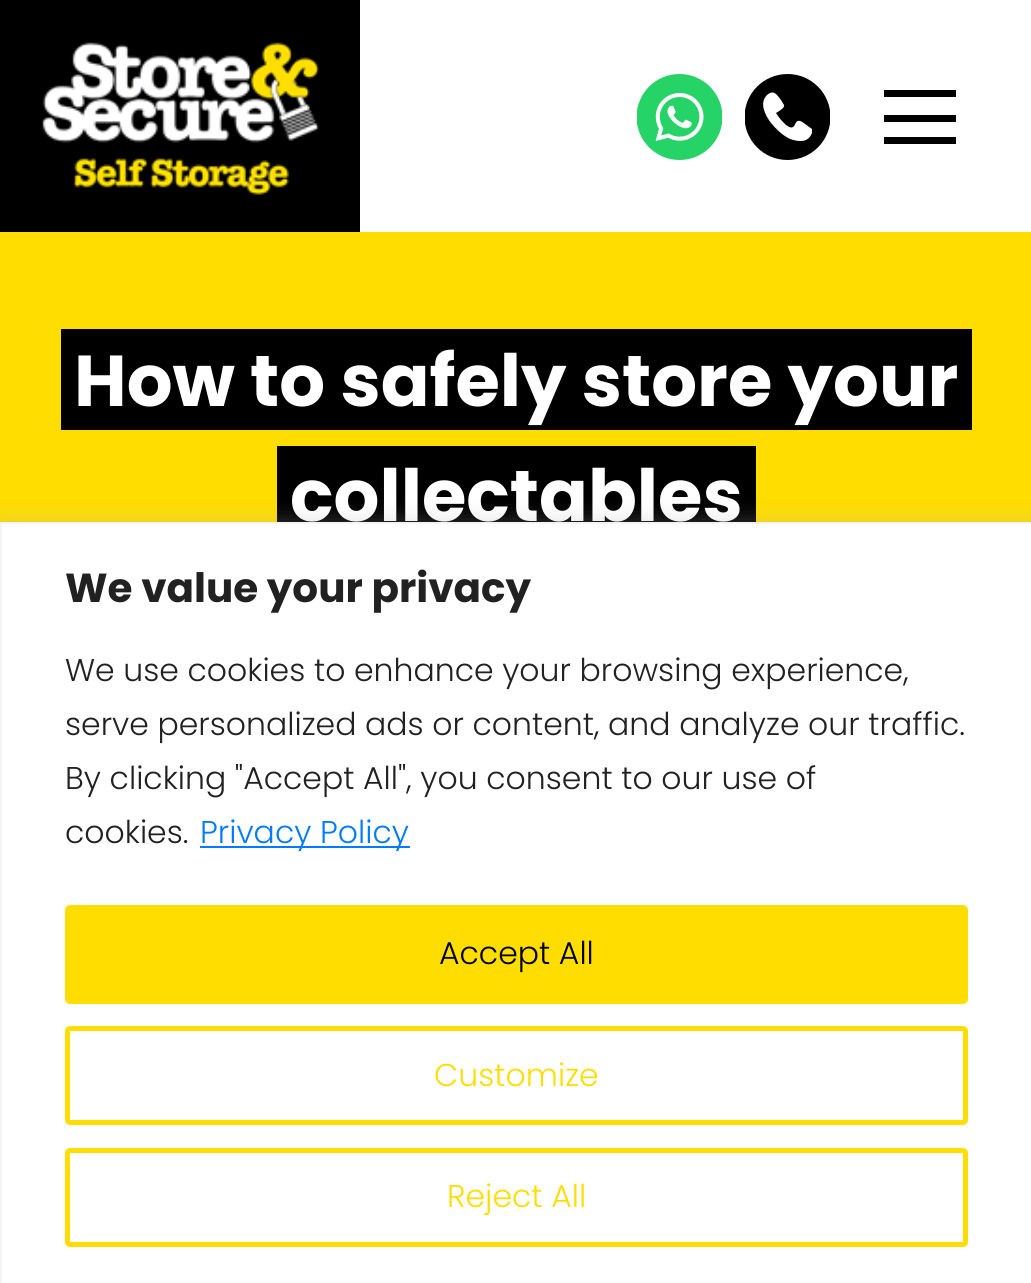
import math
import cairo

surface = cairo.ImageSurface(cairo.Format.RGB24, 1031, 1283)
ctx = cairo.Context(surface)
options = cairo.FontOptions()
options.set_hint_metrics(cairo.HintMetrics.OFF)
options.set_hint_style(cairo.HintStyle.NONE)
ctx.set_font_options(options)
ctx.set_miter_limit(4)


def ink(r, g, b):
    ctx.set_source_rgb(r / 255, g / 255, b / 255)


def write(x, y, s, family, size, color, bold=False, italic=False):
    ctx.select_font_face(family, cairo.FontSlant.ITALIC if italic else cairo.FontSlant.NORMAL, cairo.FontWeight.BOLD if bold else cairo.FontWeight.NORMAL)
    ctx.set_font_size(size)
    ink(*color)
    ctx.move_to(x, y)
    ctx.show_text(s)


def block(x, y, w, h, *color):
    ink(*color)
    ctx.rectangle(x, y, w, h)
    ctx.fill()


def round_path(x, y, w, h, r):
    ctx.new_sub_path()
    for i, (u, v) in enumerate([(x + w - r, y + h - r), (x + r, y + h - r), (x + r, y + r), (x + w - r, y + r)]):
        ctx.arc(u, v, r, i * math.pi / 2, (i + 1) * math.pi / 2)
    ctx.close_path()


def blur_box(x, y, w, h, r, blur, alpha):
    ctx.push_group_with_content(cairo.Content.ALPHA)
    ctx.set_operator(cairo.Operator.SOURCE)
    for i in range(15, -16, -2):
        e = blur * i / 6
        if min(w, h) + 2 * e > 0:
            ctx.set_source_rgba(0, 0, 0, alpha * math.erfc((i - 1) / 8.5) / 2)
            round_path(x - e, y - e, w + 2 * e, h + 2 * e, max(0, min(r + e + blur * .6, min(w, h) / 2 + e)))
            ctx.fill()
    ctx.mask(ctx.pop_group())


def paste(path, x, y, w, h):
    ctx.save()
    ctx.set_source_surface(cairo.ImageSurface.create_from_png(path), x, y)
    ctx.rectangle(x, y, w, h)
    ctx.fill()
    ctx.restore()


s1 = dict(family="Poppins", size=72, color=(255, 255, 255), bold=True)
s2 = dict(family="Poppins", size=40.5, color=(33, 33, 33), bold=True)
s3 = dict(family="Poppins Light", size=31.5, color=(33, 33, 33))
s4 = dict(family="Poppins Light", size=31.5, color=(0, 123, 255))
s5 = dict(family="Poppins Light", size=31.5, color=(0, 0, 0))
s6 = dict(family="Poppins Light", size=31.5, color=(255, 221, 0))

ink(255, 255, 255)
ctx.paint()
block(0, 0, 360, 232, 0, 0, 0)
paste("pic1.png", 41, 42, 279, 154)
paste("pic2.png", 637, 74, 85, 86)
ctx.save()
ctx.rectangle(745, 74, 85, 86)
ctx.clip()
ctx.arc(787.5, 117, 43, 0, 2 * math.pi)
ctx.fill()
ctx.restore()
ink(255, 255, 255)
ctx.new_path()
ctx.move_to(776, 113)
ctx.curve_to(778, 116, 780, 119, 782, 121)
ctx.line_to(786, 125)
ctx.curve_to(797, 133, 793, 119, 800, 121)
ctx.curve_to(802, 121, 810, 128, 812, 129)
ctx.line_to(812, 133)
ctx.curve_to(808, 143, 799, 142, 790, 139)
ctx.curve_to(782, 135, 776, 129, 771, 123)
ctx.curve_to(765, 115, 759, 103, 767, 95)
ctx.curve_to(774, 89, 777, 95, 781, 100)
ctx.line_to(784, 105)
ctx.curve_to(785, 108, 779, 111, 776, 113)
ctx.close_path()
ctx.fill()
block(884, 90, 72, 7, 0, 0, 0)
block(884, 115, 72, 7, 0, 0, 0)
block(884, 137, 72, 7, 0, 0, 0)
block(0, 232, 1031, 290, 255, 221, 0)
block(74, 329, 884, 101, 0, 0, 0)
write(74, 406, "How to safely store your", **s1)
ink(0, 0, 0)
ctx.new_path()
ctx.move_to(61, 329)
ctx.line_to(61, 430)
ctx.line_to(945, 430)
ctx.line_to(74, 430)
ctx.line_to(74, 329)
ctx.close_path()
ctx.fill()
ctx.new_path()
ctx.move_to(88, 430)
ctx.line_to(972, 430)
ctx.line_to(972, 329)
ctx.line_to(958, 329)
ctx.line_to(958, 430)
ctx.close_path()
ctx.fill()
block(290, 446, 452, 76, 0, 0, 0)
write(290, 521, "collectables", **s1)
ink(0, 0, 0)
ctx.new_path()
ctx.move_to(277, 446)
ctx.line_to(277, 547)
ctx.line_to(729, 547)
ctx.line_to(290, 547)
ctx.line_to(290, 446)
ctx.close_path()
ctx.fill()
ctx.new_path()
ctx.move_to(304, 547)
ctx.line_to(756, 547)
ctx.line_to(756, 446)
ctx.line_to(742, 446)
ctx.line_to(742, 547)
ctx.close_path()
ctx.fill()
ink(172, 171, 171)
blur_box(0, 520, 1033, 763, 0, 11, 0.3)
ink(255, 255, 255)
ctx.rectangle(1, 523, 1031, 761)
ctx.fill_preserve()
ink(244, 244, 244)
ctx.stroke()
write(65, 602, "We value your privacy", **s2)
write(65, 681, "We use cookies to enhance your browsing experience,", **s3)
write(65, 735, "serve personalized ads or content, and analyze our traffic.", **s3)
write(65, 789, "By clicking \"Accept All\", you consent to our use of", **s3)
write(65, 843, "cookies.", **s3)
block(200, 846, 210, 2, 0, 123, 255)
write(200, 843, "Privacy Policy", **s4)
ink(255, 221, 0)
round_path(67.5, 907.5, 898, 94, 2.5)
ctx.fill_preserve()
ctx.set_line_width(5)
ctx.stroke()
write(439, 964, "Accept All", **s5)
round_path(67.5, 1028.5, 898, 94, 2.5)
ink(255, 221, 0)
ctx.stroke()
write(434, 1086, "Customize", **s6)
round_path(67.5, 1150.5, 898, 94, 2.5)
ctx.stroke()
write(447, 1207, "Reject All", **s6)
surface.write_to_png("screenshot.png")
